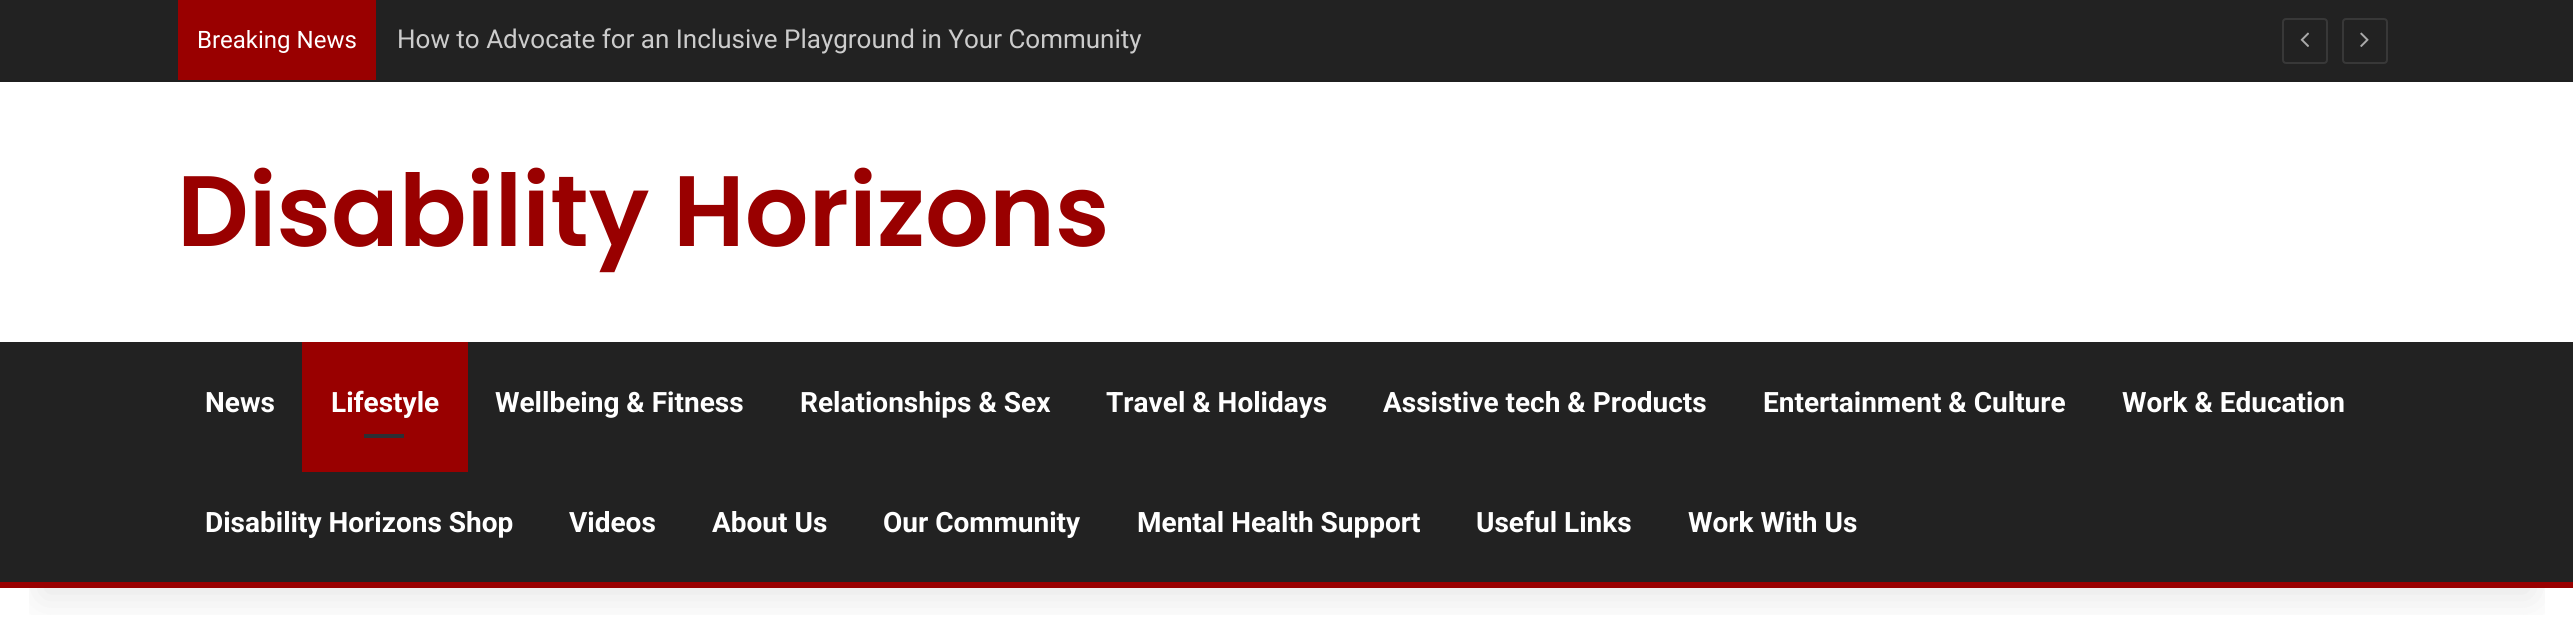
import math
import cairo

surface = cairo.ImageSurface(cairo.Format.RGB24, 2573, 627)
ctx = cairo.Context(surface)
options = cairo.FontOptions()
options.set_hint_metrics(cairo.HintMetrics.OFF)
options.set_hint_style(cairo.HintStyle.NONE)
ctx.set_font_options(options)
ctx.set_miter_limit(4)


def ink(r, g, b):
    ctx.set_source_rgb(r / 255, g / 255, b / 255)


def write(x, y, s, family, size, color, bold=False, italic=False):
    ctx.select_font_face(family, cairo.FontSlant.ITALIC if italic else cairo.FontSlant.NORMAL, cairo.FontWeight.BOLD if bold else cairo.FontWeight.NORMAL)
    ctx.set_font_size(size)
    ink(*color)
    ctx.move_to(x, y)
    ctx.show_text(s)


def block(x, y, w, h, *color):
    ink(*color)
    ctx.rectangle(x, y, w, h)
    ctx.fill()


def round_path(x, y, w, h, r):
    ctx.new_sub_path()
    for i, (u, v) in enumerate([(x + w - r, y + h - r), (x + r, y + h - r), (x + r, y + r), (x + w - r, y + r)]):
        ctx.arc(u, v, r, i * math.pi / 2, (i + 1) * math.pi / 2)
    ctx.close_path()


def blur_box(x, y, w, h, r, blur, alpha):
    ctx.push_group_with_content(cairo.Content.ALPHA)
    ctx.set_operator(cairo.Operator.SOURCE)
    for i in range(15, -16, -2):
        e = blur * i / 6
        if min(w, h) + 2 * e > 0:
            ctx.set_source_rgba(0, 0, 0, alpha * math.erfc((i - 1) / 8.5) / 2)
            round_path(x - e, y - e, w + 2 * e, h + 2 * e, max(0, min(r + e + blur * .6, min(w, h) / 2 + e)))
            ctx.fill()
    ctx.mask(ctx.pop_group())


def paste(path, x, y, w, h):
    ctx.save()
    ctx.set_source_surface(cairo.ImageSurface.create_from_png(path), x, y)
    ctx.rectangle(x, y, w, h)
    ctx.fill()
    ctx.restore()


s1 = dict(family="Roboto", size=24, color=(255, 255, 255))
s2 = dict(family="Roboto", size=26, color=(204, 204, 204))
s3 = dict(family="Poppins SemiBold", size=100, color=(153, 0, 0))
s4 = dict(family="Roboto", size=28, color=(255, 255, 255), bold=True)

ink(255, 255, 255)
ctx.paint()
ctx.save()
ctx.rectangle(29, 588, 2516, 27)
ctx.clip()
ink(0, 0, 0)
blur_box(40, 90, 2494, 508, 0, 20, 0.1)
ctx.restore()
block(0, 0, 2573, 80, 34, 34, 34)
block(0, 80, 2573, 2, 31, 31, 31)
block(178, 0, 198, 80, 153, 0, 0)
write(197, 48, "Breaking News", **s1)
write(397, 48, "How to Advocate for an Inclusive Playground in Your Community", **s2)
round_path(2283, 19, 44, 44, 3)
ink(56, 56, 56)
ctx.stroke()
paste("pic1.png", 2300, 32, 9, 15)
round_path(2343, 19, 44, 44, 3)
ctx.stroke()
paste("pic2.png", 2360, 32, 9, 15)
write(177, 246, "Disability Horizons", **s3)
block(0, 342, 2573, 240, 34, 34, 34)
block(0, 582, 2573, 6, 153, 0, 0)
write(205, 412, "News", **s4)
block(302, 342, 166, 130, 153, 0, 0)
write(331, 412, "Lifestyle", **s4)
block(364, 434, 40, 4, 44, 47, 52)
write(495, 412, "Wellbeing & Fitness", **s4)
write(800, 412, "Relationships & Sex", **s4)
write(1106, 412, "Travel & Holidays", **s4)
write(1383, 412, "Assistive tech & Products", **s4)
write(1763, 412, "Entertainment & Culture", **s4)
write(2122, 412, "Work & Education", **s4)
write(205, 532, "Disability Horizons Shop", **s4)
write(569, 532, "Videos", **s4)
write(712, 532, "About Us", **s4)
write(883, 532, "Our Community", **s4)
write(1137, 532, "Mental Health Support", **s4)
write(1476, 532, "Useful Links", **s4)
write(1688, 532, "Work With Us", **s4)
surface.write_to_png("screenshot.png")
